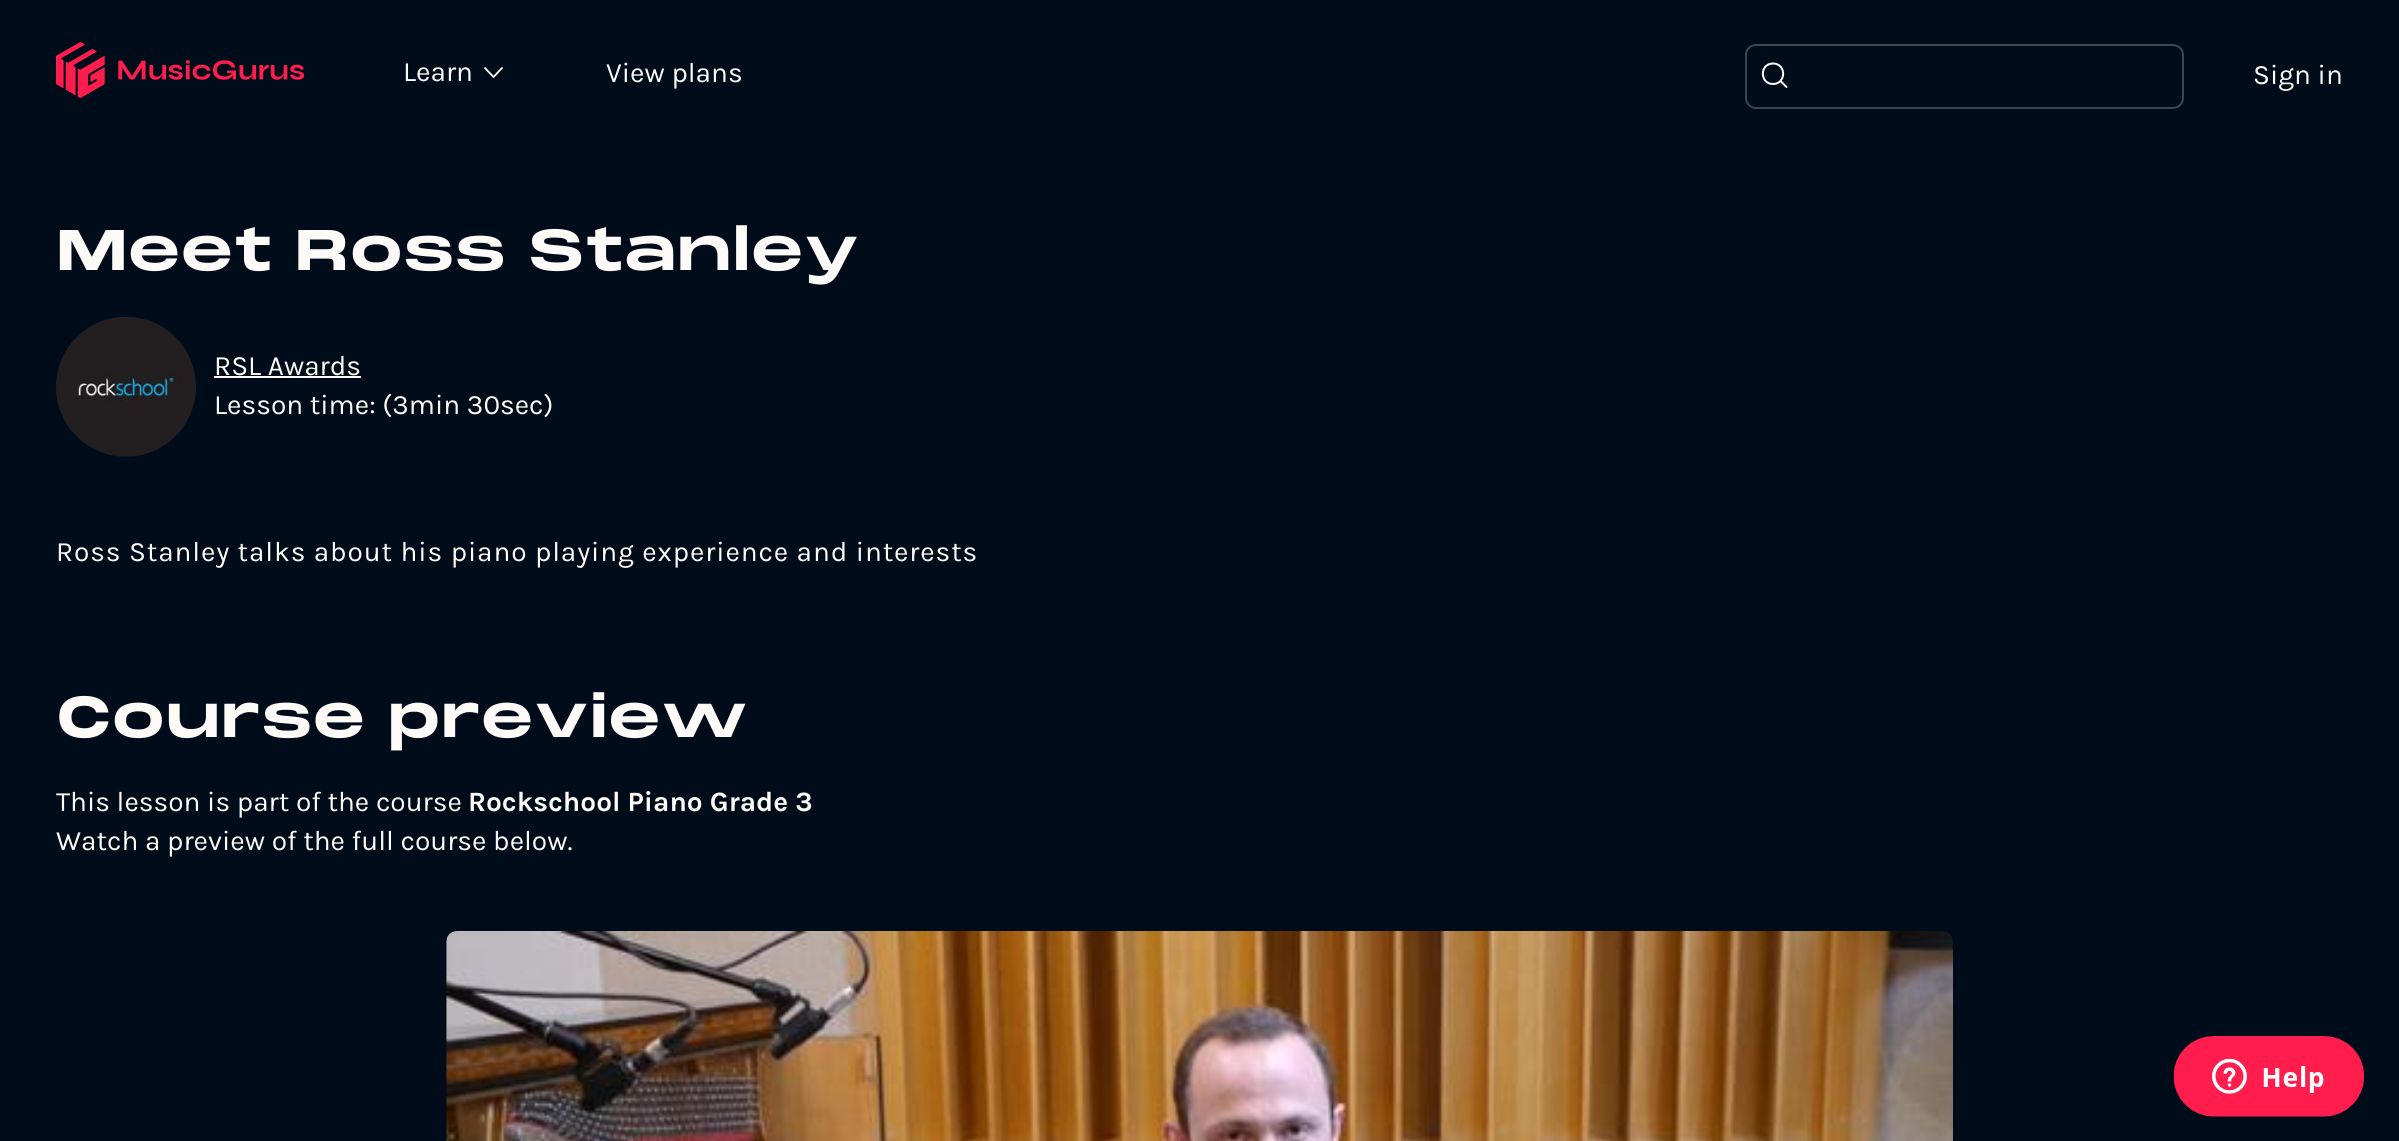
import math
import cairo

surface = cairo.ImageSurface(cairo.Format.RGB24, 2399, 1141)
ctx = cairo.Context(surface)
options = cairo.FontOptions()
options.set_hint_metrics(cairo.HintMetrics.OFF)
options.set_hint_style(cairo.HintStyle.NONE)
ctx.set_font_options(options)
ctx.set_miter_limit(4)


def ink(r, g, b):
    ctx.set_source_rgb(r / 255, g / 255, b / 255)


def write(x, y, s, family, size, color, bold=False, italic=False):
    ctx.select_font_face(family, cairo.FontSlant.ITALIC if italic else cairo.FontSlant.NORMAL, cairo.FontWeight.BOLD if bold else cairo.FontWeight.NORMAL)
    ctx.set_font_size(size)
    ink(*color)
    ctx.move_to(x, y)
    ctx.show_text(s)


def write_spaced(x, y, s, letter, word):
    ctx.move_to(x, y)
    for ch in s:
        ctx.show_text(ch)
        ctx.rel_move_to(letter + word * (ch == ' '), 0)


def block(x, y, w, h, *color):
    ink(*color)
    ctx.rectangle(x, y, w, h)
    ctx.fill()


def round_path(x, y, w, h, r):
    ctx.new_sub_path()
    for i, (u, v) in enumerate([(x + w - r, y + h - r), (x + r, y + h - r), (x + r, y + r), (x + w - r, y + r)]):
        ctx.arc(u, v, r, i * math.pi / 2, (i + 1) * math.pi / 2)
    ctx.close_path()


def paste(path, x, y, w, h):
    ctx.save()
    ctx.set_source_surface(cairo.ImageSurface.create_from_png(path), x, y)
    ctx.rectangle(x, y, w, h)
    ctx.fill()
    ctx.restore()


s1 = dict(family="Karla", size=28, color=(253, 250, 247))
s2 = dict(family="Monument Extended", size=56, color=(253, 250, 247), bold=True)
s3 = dict(family="Karla", size=28, color=(253, 250, 247), bold=True)

ink(1, 12, 26)
ctx.paint()
paste("pic1.png", 56, 42, 249, 56)
write(403, 81, "Learn", **s1)
ctx.new_path()
ctx.move_to(502, 68)
ctx.line_to(493.5, 77)
ctx.line_to(485, 68)
ctx.set_line_width(1.8)
ctx.set_line_cap(cairo.LineCap.ROUND)
ctx.set_line_join(cairo.LineJoin.ROUND)
ctx.stroke()
write(606, 82, "View plans", **s1)
round_path(1746, 45, 437, 63, 10)
ink(61, 69, 79)
ctx.set_line_width(2)
ctx.set_line_cap(cairo.LineCap.BUTT)
ctx.set_line_join(cairo.LineJoin.MITER)
ctx.stroke()
ctx.new_path()
ctx.move_to(1773, 84)
ctx.curve_to(1786.5, 84, 1786.5, 63.5, 1773, 63.5)
ctx.curve_to(1759.5, 63.5, 1759.5, 84, 1773, 84)
ctx.close_path()
ctx.move_to(1780.5, 81)
ctx.line_to(1786.5, 87)
ink(253, 250, 247)
ctx.set_line_cap(cairo.LineCap.ROUND)
ctx.set_line_join(cairo.LineJoin.ROUND)
ctx.stroke()
write(2253, 84, "Sign in", **s1)
write(56, 270, "Meet Ross Stanley", **s2)
paste("pic2.png", 56, 317, 140, 140)
write(214, 375, "RSL Awards", **s1)
block(214, 376, 147, 2, 253, 250, 247)
write(214, 414, "Lesson time: (3min 30sec)", **s1)
write_spaced(56, 561, "Ross Stanley talks about his piano playing experience and interests", 0.88, 0)
write(56, 737, "Course preview", **s2)
write(56, 811, "This lesson is part of the course", **s1)
write(468, 811, "Rockschool Piano Grade 3", **s3)
write(56, 850, "Watch a preview of the full course below.", **s1)
paste("pic3.png", 446, 931, 1507, 210)
paste("pic4.png", 2173, 1036, 192, 81)
surface.write_to_png("screenshot.png")
